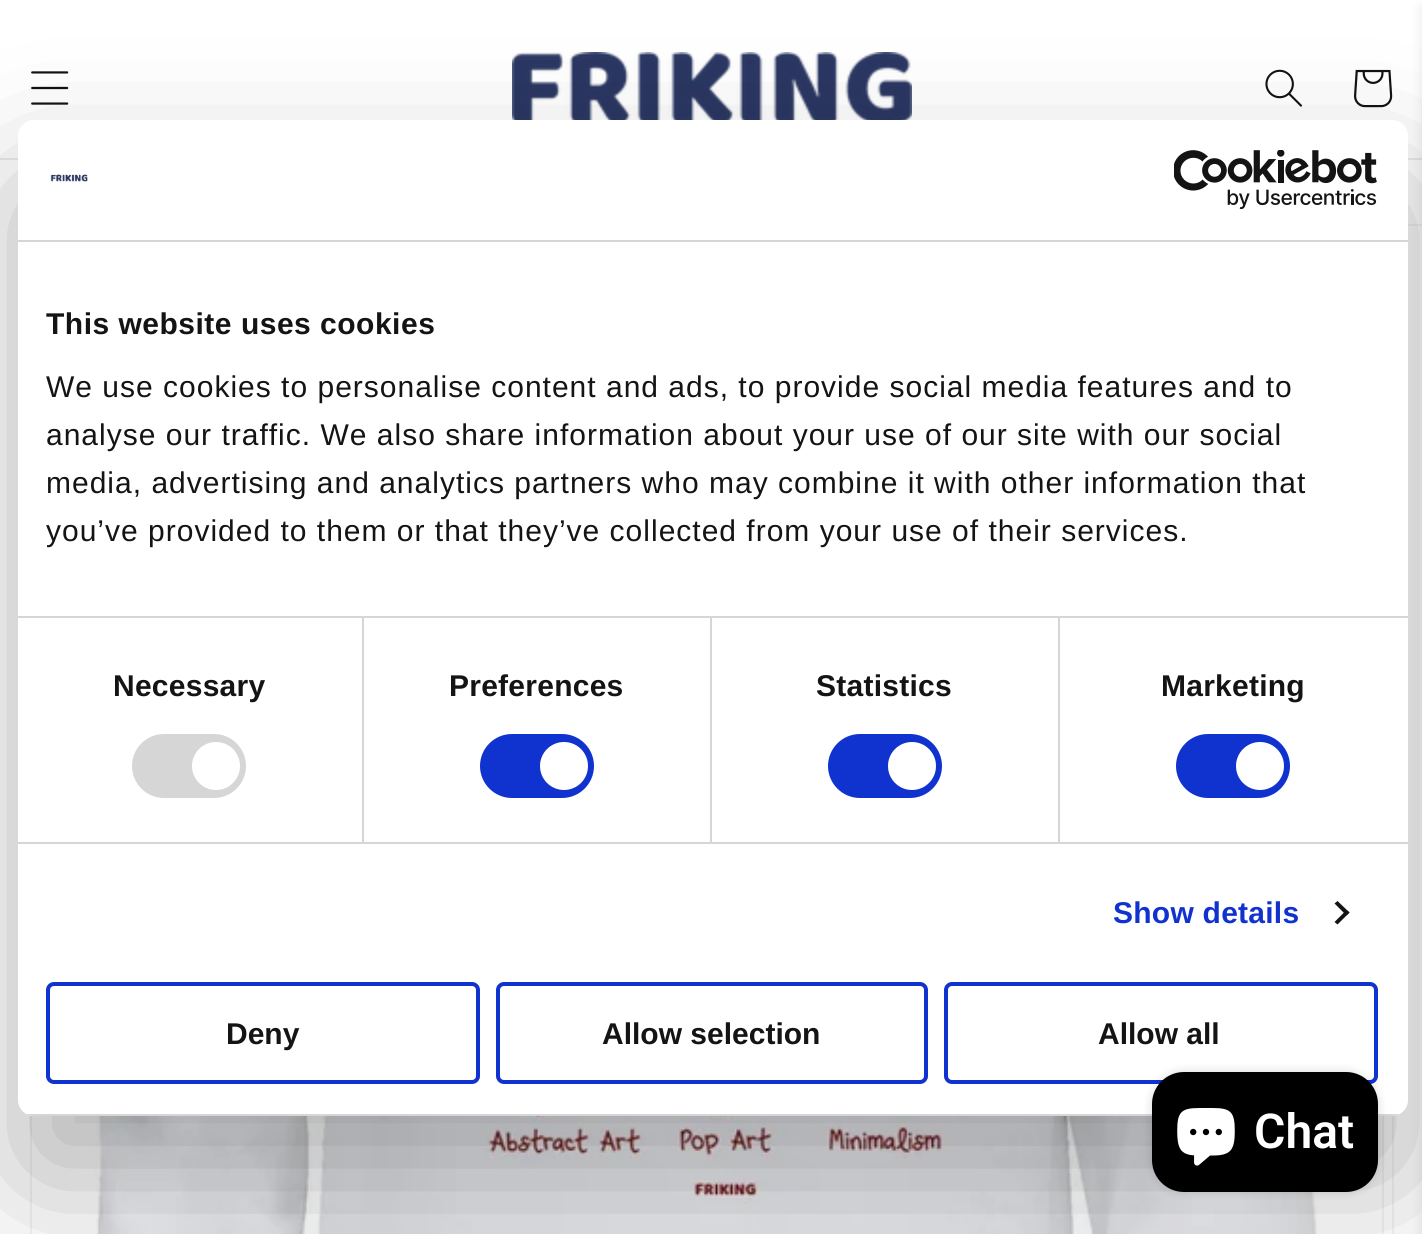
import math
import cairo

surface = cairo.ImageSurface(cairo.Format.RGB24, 1422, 1234)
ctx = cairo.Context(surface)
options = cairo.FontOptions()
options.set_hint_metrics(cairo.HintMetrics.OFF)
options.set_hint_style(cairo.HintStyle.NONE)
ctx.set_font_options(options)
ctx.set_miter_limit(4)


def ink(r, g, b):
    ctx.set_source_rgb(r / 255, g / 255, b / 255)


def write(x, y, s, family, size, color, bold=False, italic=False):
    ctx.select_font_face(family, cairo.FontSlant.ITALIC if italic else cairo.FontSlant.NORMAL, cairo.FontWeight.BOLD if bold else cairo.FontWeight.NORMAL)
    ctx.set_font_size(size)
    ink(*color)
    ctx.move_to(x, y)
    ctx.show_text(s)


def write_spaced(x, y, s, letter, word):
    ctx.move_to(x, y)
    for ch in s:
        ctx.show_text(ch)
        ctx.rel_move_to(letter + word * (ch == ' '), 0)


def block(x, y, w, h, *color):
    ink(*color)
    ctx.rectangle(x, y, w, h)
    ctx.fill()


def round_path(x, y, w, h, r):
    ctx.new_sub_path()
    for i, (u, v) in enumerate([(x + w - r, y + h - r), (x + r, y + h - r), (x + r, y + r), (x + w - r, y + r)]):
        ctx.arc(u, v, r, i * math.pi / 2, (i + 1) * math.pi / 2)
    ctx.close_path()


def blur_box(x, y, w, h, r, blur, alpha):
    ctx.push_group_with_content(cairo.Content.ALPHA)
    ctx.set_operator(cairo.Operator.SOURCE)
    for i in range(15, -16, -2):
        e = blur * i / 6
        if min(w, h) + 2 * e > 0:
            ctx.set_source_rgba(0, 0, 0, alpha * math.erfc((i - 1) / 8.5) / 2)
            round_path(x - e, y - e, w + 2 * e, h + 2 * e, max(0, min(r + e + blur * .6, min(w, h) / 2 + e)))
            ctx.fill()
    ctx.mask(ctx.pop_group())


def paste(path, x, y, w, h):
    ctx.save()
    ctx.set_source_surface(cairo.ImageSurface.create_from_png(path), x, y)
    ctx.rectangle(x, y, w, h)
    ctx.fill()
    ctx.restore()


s1 = dict(family="Liberation Sans", size=30, color=(20, 20, 20), bold=True)
s2 = dict(family="Roboto SemiBold", size=48, color=(255, 255, 255))

ink(255, 255, 255)
ctx.paint()
block(0, 158, 1422, 2, 236, 236, 236)
ctx.rectangle(1393, 225, 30, 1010)
ink(243, 243, 243)
ctx.stroke()
ctx.rectangle(31, 225, 1352, 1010)
ctx.stroke()
paste("pic1.png", 31, 71, 38, 34)
paste("pic2.png", 512, 52, 400, 68)
paste("pic3.png", 1265, 69, 37, 38)
paste("pic4.png", 1354, 69, 39, 39)
paste("pic5.png", 94, 1116, 1224, 118)
ink(0, 0, 0)
blur_box(18, 184, 1390, 996, 16, 68, 0.3)
ink(255, 255, 255)
round_path(18, 120, 1390, 996, 16)
ctx.fill()
block(18, 240, 1390, 2, 214, 214, 214)
block(18, 616, 1390, 2, 214, 214, 214)
block(18, 842, 1390, 2, 214, 214, 214)
ctx.save()
round_path(18, 120, 1390, 996, 16)
ctx.clip()
block(18, 1114, 1390, 2, 214, 214, 214)
ctx.restore()
ink(0, 0, 0)
blur_box(1422, 8, 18, 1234, 0, 6, 0.1)
paste("pic6.png", 50, 174, 38, 8)
paste("pic7.png", 1174, 150, 203, 60)
ctx.select_font_face("Liberation Sans", cairo.FontSlant.NORMAL, cairo.FontWeight.BOLD)
ctx.set_font_size(30)
ink(20, 20, 20)
write_spaced(46, 334, "This website uses cookies", 0.5, 0)
ctx.select_font_face("Liberation Sans")
write_spaced(46, 397, "We use cookies to personalise content and ads, to provide social media features and to", 1, 0)
write_spaced(46, 445, "analyse our traffic. We also share information about your use of our site with our social", 1, 0)
write_spaced(46, 493, "media, advertising and analytics partners who may combine it with other information that", 1, 0)
write_spaced(46, 541, "you’ve provided to them or that they’ve collected from your use of their services.", 1, 0)
block(362, 618, 2, 224, 214, 214, 214)
ctx.select_font_face("Liberation Sans", cairo.FontSlant.NORMAL, cairo.FontWeight.BOLD)
ink(20, 20, 20)
write_spaced(113, 696, "Necessary", 0.25, 0)
ink(214, 214, 214)
round_path(132, 734, 114, 64, 32)
ctx.fill()
ink(255, 255, 255)
ctx.arc(216, 766, 24, 0, 2 * math.pi)
ctx.fill()
block(710, 618, 2, 224, 214, 214, 214)
ink(20, 20, 20)
write_spaced(449, 696, "Preferences", 0.25, 0)
ink(16, 50, 207)
round_path(480, 734, 114, 64, 32)
ctx.fill()
ink(255, 255, 255)
ctx.arc(564, 766, 24, 0, 2 * math.pi)
ctx.fill()
block(1058, 618, 2, 224, 214, 214, 214)
ink(20, 20, 20)
write_spaced(816, 696, "Statistics", 0.25, 0)
ink(16, 50, 207)
round_path(828, 734, 114, 64, 32)
ctx.fill()
ink(255, 255, 255)
ctx.arc(912, 766, 24, 0, 2 * math.pi)
ctx.fill()
ink(20, 20, 20)
write_spaced(1161, 696, "Marketing", 0.25, 0)
ink(16, 50, 207)
round_path(1176, 734, 114, 64, 32)
ctx.fill()
ink(255, 255, 255)
ctx.arc(1260, 766, 24, 0, 2 * math.pi)
ctx.fill()
ink(16, 50, 207)
write_spaced(1113, 923, "Show details", 0.25, 0)
ink(20, 20, 20)
ctx.new_path()
ctx.move_to(1337.5, 901)
ctx.line_to(1349.5, 912.5)
ctx.line_to(1346.5, 915.5)
ctx.line_to(1334.5, 903.5)
ctx.close_path()
ctx.fill()
ctx.new_path()
ctx.move_to(1346.5, 910)
ctx.line_to(1349.5, 912.5)
ctx.line_to(1337.5, 924.5)
ctx.line_to(1334.5, 922)
ctx.close_path()
ctx.fill()
round_path(48, 984, 430, 98, 6)
ink(16, 50, 207)
ctx.set_line_width(4)
ctx.stroke()
write(226, 1044, "Deny", **s1)
round_path(498, 984, 428, 98, 6)
ink(16, 50, 207)
ctx.stroke()
write(602, 1044, "Allow selection", **s1)
round_path(946, 984, 430, 98, 6)
ink(16, 50, 207)
ctx.stroke()
write(1098, 1044, "Allow all", **s1)
ink(0, 0, 0)
blur_box(1152, 1072, 226, 120, 32, 5, 0.15)
ink(0, 0, 0)
round_path(1152, 1072, 226, 120, 32)
ctx.fill()
paste("pic8.png", 1177, 1108, 58, 58)
write(1254, 1148, "Chat", **s2)
surface.write_to_png("screenshot.png")
